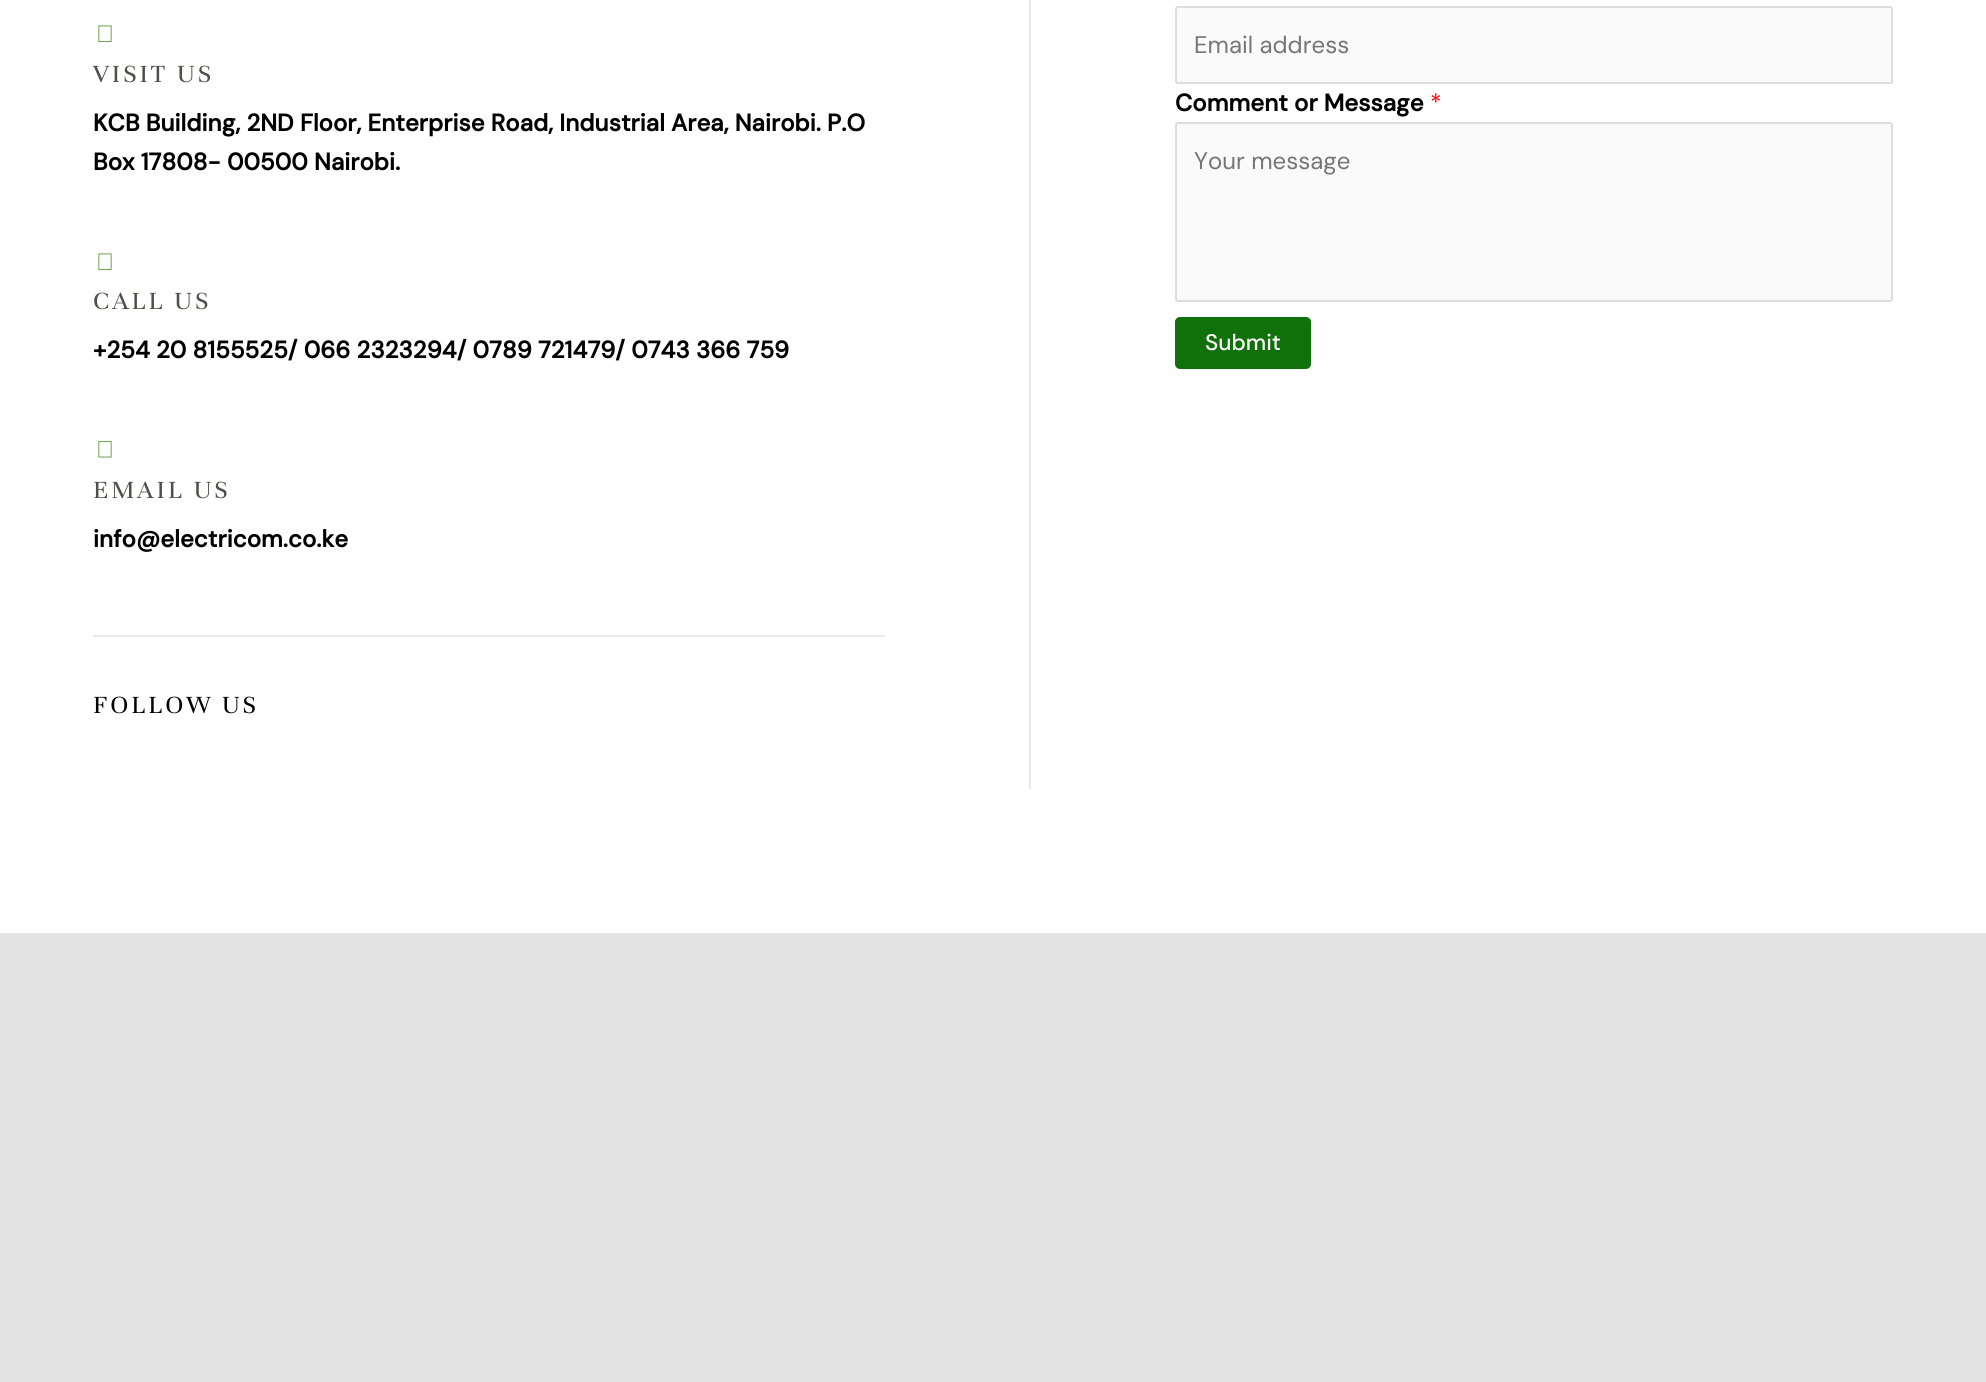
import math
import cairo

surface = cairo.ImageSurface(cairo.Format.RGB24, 1986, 1382)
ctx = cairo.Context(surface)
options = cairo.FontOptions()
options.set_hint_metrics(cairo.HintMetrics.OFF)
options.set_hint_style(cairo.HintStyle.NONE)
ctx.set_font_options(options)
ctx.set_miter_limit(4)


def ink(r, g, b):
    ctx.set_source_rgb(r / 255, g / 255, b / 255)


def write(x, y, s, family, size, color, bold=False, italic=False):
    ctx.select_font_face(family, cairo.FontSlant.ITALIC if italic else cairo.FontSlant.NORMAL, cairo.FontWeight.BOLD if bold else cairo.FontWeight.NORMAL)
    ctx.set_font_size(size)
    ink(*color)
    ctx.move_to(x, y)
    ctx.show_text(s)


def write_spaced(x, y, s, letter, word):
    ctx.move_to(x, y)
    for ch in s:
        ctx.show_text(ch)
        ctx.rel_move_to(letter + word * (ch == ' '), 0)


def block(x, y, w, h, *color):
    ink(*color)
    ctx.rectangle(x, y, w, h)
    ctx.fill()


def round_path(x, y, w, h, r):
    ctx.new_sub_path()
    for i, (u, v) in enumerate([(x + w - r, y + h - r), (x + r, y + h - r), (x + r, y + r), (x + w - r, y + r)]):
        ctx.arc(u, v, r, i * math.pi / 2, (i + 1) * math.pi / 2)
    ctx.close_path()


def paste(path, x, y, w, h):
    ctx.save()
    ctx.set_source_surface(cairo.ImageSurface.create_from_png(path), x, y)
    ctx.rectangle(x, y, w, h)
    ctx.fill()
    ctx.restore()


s1 = dict(family="DM Sans", size=24, color=(0, 0, 0), bold=True)
s2 = dict(family="DM Sans", size=24, color=(117, 117, 117))
s3 = dict(family="DM Sans", size=24, color=(255, 0, 0))
s4 = dict(family="DM Sans Medium", size=22.5, color=(255, 255, 255))

ink(255, 255, 255)
ctx.paint()
paste("pic1.png", 98, 25, 14, 17)
ctx.select_font_face("Unna")
ctx.set_font_size(27)
ink(77, 79, 72)
write_spaced(93, 82, "VISIT US", 3, 0)
write(93, 131, "KCB Building, 2ND Floor, Enterprise Road, Industrial Area, Nairobi. P.O", **s1)
write(93, 170, "Box 17808- 00500 Nairobi.", **s1)
paste("pic1.png", 98, 253, 14, 17)
ctx.select_font_face("Unna")
ctx.set_font_size(27)
ink(77, 79, 72)
write_spaced(93, 309, "CALL US", 3, 0)
write(93, 358, "+254 20 8155525/ 066 2323294/ 0789 721479/ 0743 366 759", **s1)
paste("pic2.png", 98, 441, 14, 17)
ctx.select_font_face("Unna")
ctx.set_font_size(27)
ink(77, 79, 72)
write_spaced(93, 498, "EMAIL US", 3, 0)
write(93, 547, "info@electricom.co.ke", **s1)
block(93, 635, 792, 2, 233, 233, 234)
ctx.select_font_face("Unna")
ctx.set_font_size(27)
ink(0, 0, 0)
write_spaced(93, 713, "FOLLOW US", 3, 0)
block(1029, 0, 2, 789, 233, 233, 234)
ink(250, 250, 250)
round_path(1176, 7, 716, 76, 2)
ctx.fill_preserve()
ink(221, 221, 221)
ctx.stroke()
write(1194, 53, "Email address", **s2)
write(1175, 111, "Comment or Message", **s1)
write(1430, 111, "*", **s3)
ink(250, 250, 250)
round_path(1176, 123, 716, 178, 2)
ctx.fill_preserve()
ink(221, 221, 221)
ctx.stroke()
write(1194, 169, "Your message", **s2)
ink(16, 113, 10)
round_path(1175, 317, 136, 52, 5)
ctx.fill()
write(1205, 350, "Submit", **s4)
block(0, 933, 1986, 449, 227, 227, 227)
surface.write_to_png("screenshot.png")
